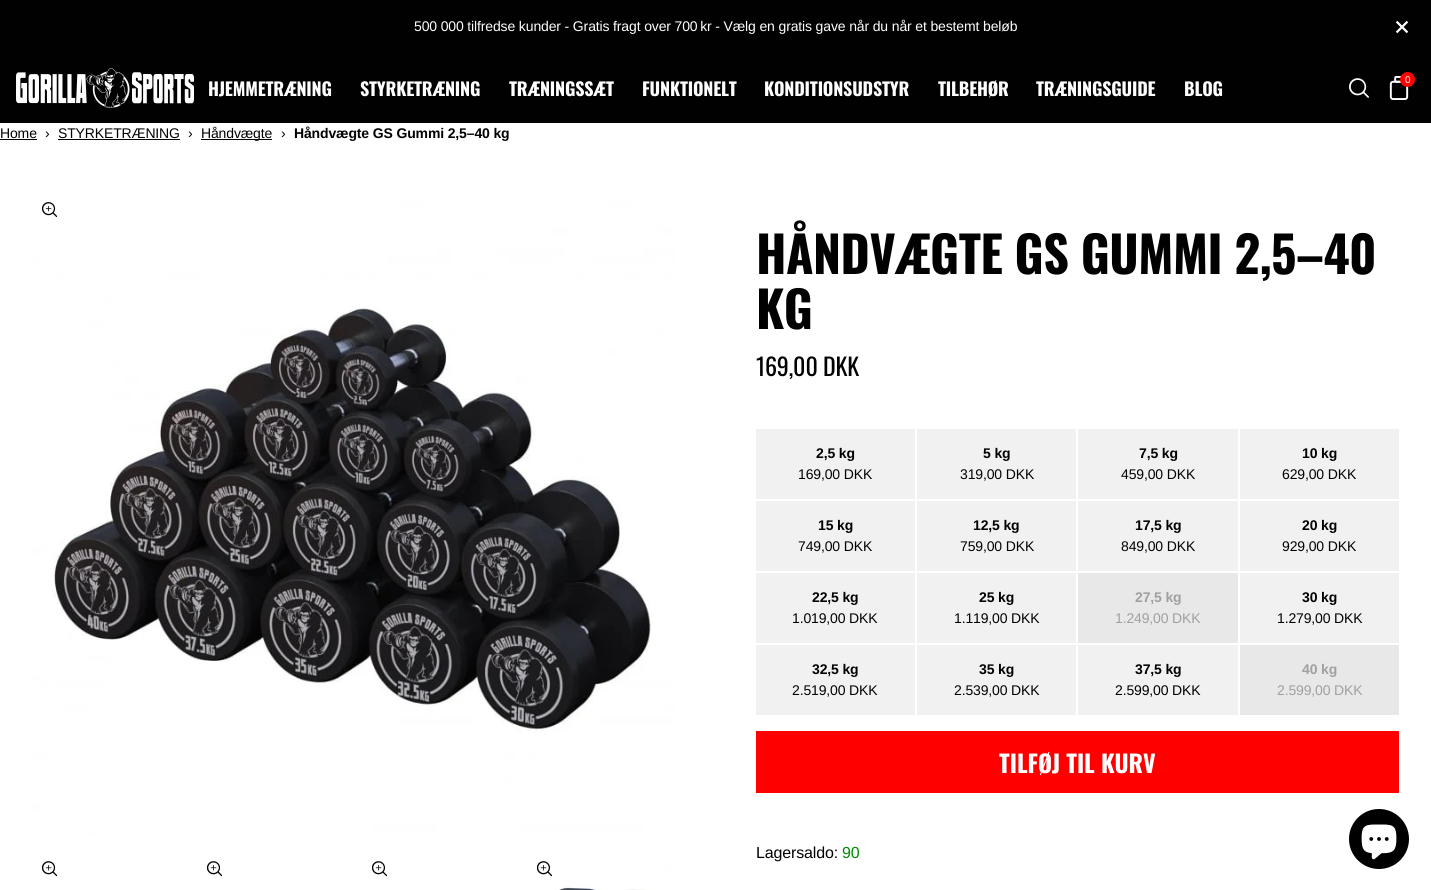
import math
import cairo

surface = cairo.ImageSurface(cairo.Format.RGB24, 1431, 890)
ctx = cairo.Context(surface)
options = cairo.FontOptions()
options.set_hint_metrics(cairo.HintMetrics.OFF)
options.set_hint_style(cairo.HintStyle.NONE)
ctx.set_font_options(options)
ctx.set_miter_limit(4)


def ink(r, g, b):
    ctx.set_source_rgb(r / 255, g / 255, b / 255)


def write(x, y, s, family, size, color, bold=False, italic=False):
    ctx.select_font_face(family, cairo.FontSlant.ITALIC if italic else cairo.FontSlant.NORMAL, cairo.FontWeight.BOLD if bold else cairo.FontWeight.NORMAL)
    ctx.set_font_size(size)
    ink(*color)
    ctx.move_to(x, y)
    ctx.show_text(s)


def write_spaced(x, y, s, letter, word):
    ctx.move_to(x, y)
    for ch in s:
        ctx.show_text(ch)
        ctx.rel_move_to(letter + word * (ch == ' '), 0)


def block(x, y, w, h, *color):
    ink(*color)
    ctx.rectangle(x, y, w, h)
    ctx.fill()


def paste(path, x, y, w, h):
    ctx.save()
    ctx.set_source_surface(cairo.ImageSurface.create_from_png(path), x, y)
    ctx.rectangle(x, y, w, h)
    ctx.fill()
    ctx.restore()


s1 = dict(family="Oswald", size=24, color=(255, 255, 255), bold=True)

ink(255, 255, 255)
ctx.paint()
block(0, 0, 1431, 123, 1, 1, 1)
ctx.select_font_face("Liberation Sans")
ctx.set_font_size(14)
ink(255, 255, 255)
write_spaced(414, 31, "500 000 tilfredse kunder - Gratis fragt over 700 kr - Vælg en gratis gave når du når et bestemt beløb", -0.14, 0)
paste("pic1.png", 1395, 20, 14, 14)
paste("pic2.png", 16, 68, 178, 40)
ctx.select_font_face("Oswald", cairo.FontSlant.NORMAL, cairo.FontWeight.BOLD)
ctx.set_font_size(18)
write_spaced(208, 96, "HJEMMETRÆNING", -0.2, 0)
write_spaced(360, 96, "STYRKETRÆNING", -0.2, 0)
write_spaced(509, 96, "TRÆNINGSSÆT", -0.2, 0)
write_spaced(642, 96, "FUNKTIONELT", -0.2, 0)
write_spaced(764, 96, "KONDITIONSUDSTYR", -0.2, 0)
write_spaced(938, 96, "TILBEHØR", -0.2, 0)
write_spaced(1036, 96, "TRÆNINGSGUIDE", -0.2, 0)
write_spaced(1184, 96, "BLOG", -0.2, 0)
paste("pic3.png", 1349, 78, 20, 20)
paste("pic4.png", 1389, 76, 20, 24)
ink(255, 0, 0)
ctx.arc(1407.5, 79.5, 7.5, 0, 2 * math.pi)
ctx.fill()
ctx.select_font_face("Liberation Sans")
ctx.set_font_size(10)
ink(255, 255, 255)
write_spaced(1405, 83, "0", -0.14, 0)
ctx.set_font_size(14)
ink(1, 1, 1)
write_spaced(0, 138, "Home", -0.14, 0)
block(0, 139, 37, 1, 1, 1, 1)
write_spaced(45, 138, "›", -0.14, 0)
write_spaced(58, 138, "STYRKETRÆNING", -0.14, 0)
block(58, 139, 122, 1, 1, 1, 1)
write_spaced(188, 138, "›", -0.14, 0)
block(201, 139, 71, 1, 1, 1, 1)
write_spaced(201, 138, "Håndvægte", -0.14, 0)
write_spaced(281, 138, "›", -0.14, 0)
ctx.select_font_face("Liberation Sans", cairo.FontSlant.NORMAL, cairo.FontWeight.BOLD)
write_spaced(294, 138, "Håndvægte GS Gummi 2,5–40 kg", -0.14, 0)
paste("pic5.png", 32, 192, 644, 644)
paste("pic6.png", 42, 202, 15, 15)
paste("pic7.png", 42, 861, 15, 16)
paste("pic8.png", 207, 861, 15, 16)
paste("pic9.png", 372, 861, 15, 16)
paste("pic10.png", 527, 852, 149, 38)
paste("pic11.png", 537, 861, 15, 16)
ctx.select_font_face("Oswald", cairo.FontSlant.NORMAL, cairo.FontWeight.BOLD)
ctx.set_font_size(50)
write_spaced(756, 274, "HÅNDVÆGTE GS GUMMI 2,5–40", -0.5, 0)
write_spaced(756, 329, "KG", -0.5, 0)
ctx.select_font_face("Oswald")
ctx.set_font_size(24)
write_spaced(756, 376, "169,00 DKK", -0.14, 0)
block(756, 429, 159, 70, 241, 241, 241)
ctx.select_font_face("Liberation Sans", cairo.FontSlant.NORMAL, cairo.FontWeight.BOLD)
ctx.set_font_size(14)
ink(1, 1, 1)
write_spaced(816, 458, "2,5 kg", -0.14, 0)
ctx.select_font_face("Liberation Sans")
write_spaced(798, 479, "169,00 DKK", -0.14, 0)
block(917, 429, 159, 70, 241, 241, 241)
ctx.select_font_face("Liberation Sans", cairo.FontSlant.NORMAL, cairo.FontWeight.BOLD)
ink(1, 1, 1)
write_spaced(983, 458, "5 kg", -0.14, 0)
ctx.select_font_face("Liberation Sans")
write_spaced(960, 479, "319,00 DKK", -0.14, 0)
block(1078, 429, 160, 70, 241, 241, 241)
ctx.select_font_face("Liberation Sans", cairo.FontSlant.NORMAL, cairo.FontWeight.BOLD)
ink(1, 1, 1)
write_spaced(1139, 458, "7,5 kg", -0.14, 0)
ctx.select_font_face("Liberation Sans")
write_spaced(1121, 479, "459,00 DKK", -0.14, 0)
block(1240, 429, 159, 70, 241, 241, 241)
ctx.select_font_face("Liberation Sans", cairo.FontSlant.NORMAL, cairo.FontWeight.BOLD)
ink(1, 1, 1)
write_spaced(1302, 458, "10 kg", -0.14, 0)
ctx.select_font_face("Liberation Sans")
write_spaced(1282, 479, "629,00 DKK", -0.14, 0)
block(756, 501, 159, 70, 241, 241, 241)
ctx.select_font_face("Liberation Sans", cairo.FontSlant.NORMAL, cairo.FontWeight.BOLD)
ink(1, 1, 1)
write_spaced(818, 530, "15 kg", -0.14, 0)
ctx.select_font_face("Liberation Sans")
write_spaced(798, 551, "749,00 DKK", -0.14, 0)
block(917, 501, 159, 70, 241, 241, 241)
ctx.select_font_face("Liberation Sans", cairo.FontSlant.NORMAL, cairo.FontWeight.BOLD)
ink(1, 1, 1)
write_spaced(973, 530, "12,5 kg", -0.14, 0)
ctx.select_font_face("Liberation Sans")
write_spaced(960, 551, "759,00 DKK", -0.14, 0)
block(1078, 501, 160, 70, 241, 241, 241)
ctx.select_font_face("Liberation Sans", cairo.FontSlant.NORMAL, cairo.FontWeight.BOLD)
ink(1, 1, 1)
write_spaced(1135, 530, "17,5 kg", -0.14, 0)
ctx.select_font_face("Liberation Sans")
write_spaced(1121, 551, "849,00 DKK", -0.14, 0)
block(1240, 501, 159, 70, 241, 241, 241)
ctx.select_font_face("Liberation Sans", cairo.FontSlant.NORMAL, cairo.FontWeight.BOLD)
ink(1, 1, 1)
write_spaced(1302, 530, "20 kg", -0.14, 0)
ctx.select_font_face("Liberation Sans")
write_spaced(1282, 551, "929,00 DKK", -0.14, 0)
block(756, 573, 159, 70, 241, 241, 241)
ctx.select_font_face("Liberation Sans", cairo.FontSlant.NORMAL, cairo.FontWeight.BOLD)
ink(1, 1, 1)
write_spaced(812, 602, "22,5 kg", -0.14, 0)
ctx.select_font_face("Liberation Sans")
write_spaced(792, 623, "1.019,00 DKK", -0.14, 0)
block(917, 573, 159, 70, 241, 241, 241)
ctx.select_font_face("Liberation Sans", cairo.FontSlant.NORMAL, cairo.FontWeight.BOLD)
ink(1, 1, 1)
write_spaced(979, 602, "25 kg", -0.14, 0)
ctx.select_font_face("Liberation Sans")
write_spaced(954, 623, "1.119,00 DKK", -0.14, 0)
block(1078, 573, 160, 70, 232, 232, 232)
ctx.select_font_face("Liberation Sans", cairo.FontSlant.NORMAL, cairo.FontWeight.BOLD)
ink(160, 160, 160)
write_spaced(1135, 602, "27,5 kg", -0.14, 0)
ctx.select_font_face("Liberation Sans")
write_spaced(1115, 623, "1.249,00 DKK", -0.14, 0)
block(1240, 573, 159, 70, 241, 241, 241)
ctx.select_font_face("Liberation Sans", cairo.FontSlant.NORMAL, cairo.FontWeight.BOLD)
ink(1, 1, 1)
write_spaced(1302, 602, "30 kg", -0.14, 0)
ctx.select_font_face("Liberation Sans")
write_spaced(1277, 623, "1.279,00 DKK", -0.14, 0)
block(756, 645, 159, 70, 241, 241, 241)
ctx.select_font_face("Liberation Sans", cairo.FontSlant.NORMAL, cairo.FontWeight.BOLD)
ink(1, 1, 1)
write_spaced(812, 674, "32,5 kg", -0.14, 0)
ctx.select_font_face("Liberation Sans")
write_spaced(792, 695, "2.519,00 DKK", -0.14, 0)
block(917, 645, 159, 70, 241, 241, 241)
ctx.select_font_face("Liberation Sans", cairo.FontSlant.NORMAL, cairo.FontWeight.BOLD)
ink(1, 1, 1)
write_spaced(979, 674, "35 kg", -0.14, 0)
ctx.select_font_face("Liberation Sans")
write_spaced(954, 695, "2.539,00 DKK", -0.14, 0)
block(1078, 645, 160, 70, 241, 241, 241)
ctx.select_font_face("Liberation Sans", cairo.FontSlant.NORMAL, cairo.FontWeight.BOLD)
ink(1, 1, 1)
write_spaced(1135, 674, "37,5 kg", -0.14, 0)
ctx.select_font_face("Liberation Sans")
write_spaced(1115, 695, "2.599,00 DKK", -0.14, 0)
block(1240, 645, 159, 70, 232, 232, 232)
ctx.select_font_face("Liberation Sans", cairo.FontSlant.NORMAL, cairo.FontWeight.BOLD)
ink(160, 160, 160)
write_spaced(1302, 674, "40 kg", -0.14, 0)
ctx.select_font_face("Liberation Sans")
write_spaced(1277, 695, "2.599,00 DKK", -0.14, 0)
block(756, 731, 643, 62, 255, 0, 0)
write(999, 773, "TILFØJ TIL KURV", **s1)
ctx.select_font_face("Liberation Sans")
ctx.set_font_size(16)
ink(1, 1, 1)
write_spaced(756, 858, "Lagersaldo:", -0.14, 0)
ink(0, 138, 0)
write_spaced(842, 858, "90", -0.14, 0)
ink(0, 0, 0)
ctx.new_path()
ctx.arc(1379, 839, 30, 0, 2 * math.pi)
ctx.fill()
paste("pic12.png", 1361, 824, 36, 36)
surface.write_to_png("screenshot.png")
